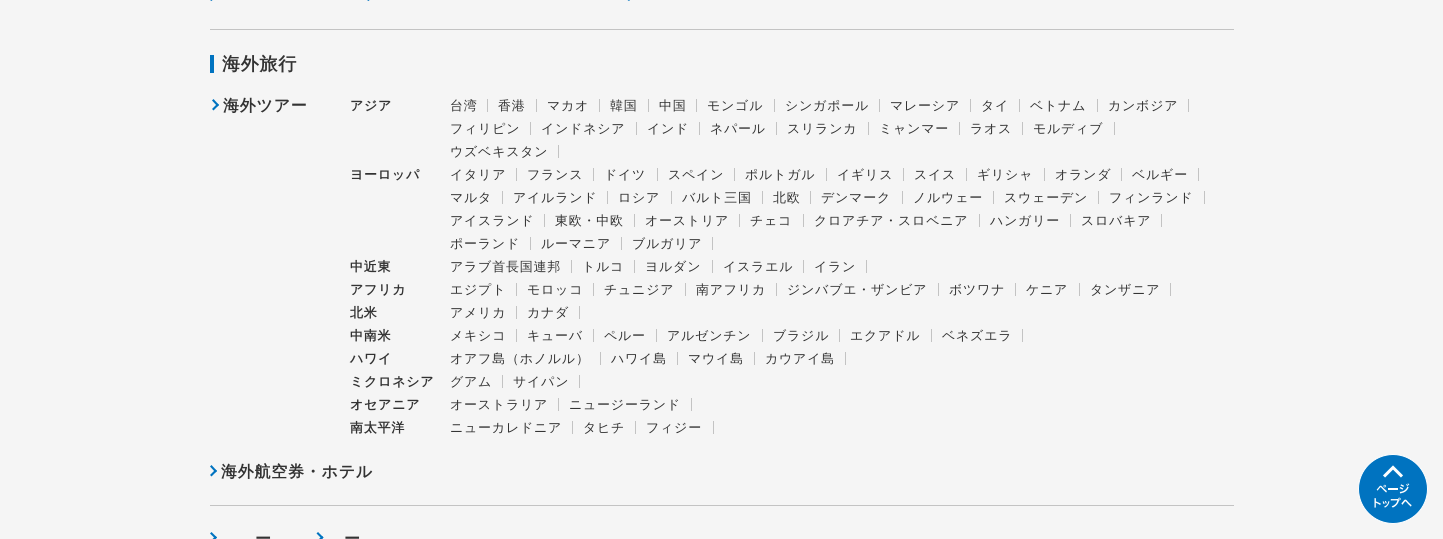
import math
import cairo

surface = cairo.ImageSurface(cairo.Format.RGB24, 1443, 539)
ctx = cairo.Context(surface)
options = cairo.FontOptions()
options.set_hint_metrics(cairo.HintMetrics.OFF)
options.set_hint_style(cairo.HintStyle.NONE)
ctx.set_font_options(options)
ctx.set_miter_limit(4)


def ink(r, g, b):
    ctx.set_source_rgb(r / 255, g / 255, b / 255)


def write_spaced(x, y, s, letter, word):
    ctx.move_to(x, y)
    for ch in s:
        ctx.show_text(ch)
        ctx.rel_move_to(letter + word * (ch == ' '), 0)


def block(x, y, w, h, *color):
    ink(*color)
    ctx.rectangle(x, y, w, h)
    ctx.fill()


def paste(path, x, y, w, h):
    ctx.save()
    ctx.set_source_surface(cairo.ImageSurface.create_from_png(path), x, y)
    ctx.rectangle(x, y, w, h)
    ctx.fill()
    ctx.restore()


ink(245, 245, 245)
ctx.paint()
block(210, 29, 1024, 1, 195, 195, 195)
ink(0, 115, 192)
ctx.new_path()
ctx.move_to(215.5, -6)
ctx.line_to(217, -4.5)
ctx.line_to(211.5, 1)
ctx.line_to(210, 0)
ctx.close_path()
ctx.fill()
ctx.new_path()
ctx.move_to(373, -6)
ctx.line_to(374.5, -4.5)
ctx.line_to(368.5, 1)
ctx.line_to(367, 0)
ctx.close_path()
ctx.fill()
ctx.new_path()
ctx.move_to(633, -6)
ctx.line_to(634.5, -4.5)
ctx.line_to(629, 1)
ctx.line_to(627.5, 0)
ctx.close_path()
ctx.fill()
block(210, 505, 1024, 1, 195, 195, 195)
block(210, 55, 4, 18, 0, 115, 192)
ctx.select_font_face("WenQuanYi Zen Hei", cairo.FontSlant.NORMAL, cairo.FontWeight.BOLD)
ctx.set_font_size(18)
ink(51, 51, 51)
write_spaced(222, 70, "海外旅行", 0.75, 0)
ink(0, 115, 192)
ctx.new_path()
ctx.move_to(213.5, 99)
ctx.line_to(219, 105)
ctx.line_to(217.5, 106.5)
ctx.line_to(212, 100.5)
ctx.close_path()
ctx.fill()
ctx.new_path()
ctx.move_to(217.5, 103.5)
ctx.line_to(219, 105)
ctx.line_to(213.5, 110.5)
ctx.line_to(212, 109)
ctx.close_path()
ctx.fill()
ctx.set_font_size(16)
ink(51, 51, 51)
write_spaced(223, 111, "海外ツアー", 0.75, 0)
ctx.set_font_size(13)
write_spaced(350, 110, "アジア", 0.75, 0)
block(487, 99, 1, 13, 195, 195, 195)
ctx.select_font_face("WenQuanYi Zen Hei Medium")
ink(51, 51, 51)
write_spaced(450, 110, "台湾", 0.75, 0)
block(536, 99, 1, 13, 195, 195, 195)
ink(51, 51, 51)
write_spaced(498, 110, "香港", 0.75, 0)
block(599, 99, 1, 13, 195, 195, 195)
ink(51, 51, 51)
write_spaced(547, 110, "マカオ", 0.75, 0)
block(648, 99, 1, 13, 195, 195, 195)
ink(51, 51, 51)
write_spaced(610, 110, "韓国", 0.75, 0)
block(696, 99, 1, 13, 195, 195, 195)
ink(51, 51, 51)
write_spaced(659, 110, "中国", 0.75, 0)
block(774, 99, 1, 13, 195, 195, 195)
ink(51, 51, 51)
write_spaced(707, 110, "モンゴル", 0.75, 0)
block(879, 99, 1, 13, 195, 195, 195)
ink(51, 51, 51)
write_spaced(785, 110, "シンガポール", 0.75, 0)
block(970, 99, 1, 13, 195, 195, 195)
ink(51, 51, 51)
write_spaced(890, 110, "マレーシア", 0.75, 0)
block(1019, 99, 1, 13, 195, 195, 195)
ink(51, 51, 51)
write_spaced(981, 110, "タイ", 0.75, 0)
block(1097, 99, 1, 13, 195, 195, 195)
ink(51, 51, 51)
write_spaced(1030, 110, "ベトナム", 0.75, 0)
block(1188, 99, 1, 13, 195, 195, 195)
ink(51, 51, 51)
write_spaced(1108, 110, "カンボジア", 0.75, 0)
block(530, 122, 1, 13, 195, 195, 195)
ink(51, 51, 51)
write_spaced(450, 133, "フィリピン", 0.75, 0)
block(636, 122, 1, 13, 195, 195, 195)
ink(51, 51, 51)
write_spaced(541, 133, "インドネシア", 0.75, 0)
block(699, 122, 1, 13, 195, 195, 195)
ink(51, 51, 51)
write_spaced(647, 133, "インド", 0.75, 0)
block(776, 122, 1, 13, 195, 195, 195)
ink(51, 51, 51)
write_spaced(710, 133, "ネパール", 0.75, 0)
block(868, 122, 1, 13, 195, 195, 195)
ink(51, 51, 51)
write_spaced(787, 133, "スリランカ", 0.75, 0)
block(959, 122, 1, 13, 195, 195, 195)
ink(51, 51, 51)
write_spaced(879, 133, "ミャンマー", 0.75, 0)
block(1022, 122, 1, 13, 195, 195, 195)
ink(51, 51, 51)
write_spaced(970, 133, "ラオス", 0.75, 0)
block(1114, 122, 1, 13, 195, 195, 195)
ink(51, 51, 51)
write_spaced(1033, 133, "モルディブ", 0.75, 0)
block(558, 145, 1, 13, 195, 195, 195)
ink(51, 51, 51)
write_spaced(450, 156, "ウズベキスタン", 0.75, 0)
ctx.select_font_face("WenQuanYi Zen Hei", cairo.FontSlant.NORMAL, cairo.FontWeight.BOLD)
write_spaced(350, 179, "ヨーロッパ", 0.75, 0)
block(516, 168, 1, 13, 195, 195, 195)
ctx.select_font_face("WenQuanYi Zen Hei Medium")
ink(51, 51, 51)
write_spaced(450, 179, "イタリア", 0.75, 0)
block(593, 168, 1, 13, 195, 195, 195)
ink(51, 51, 51)
write_spaced(527, 179, "フランス", 0.75, 0)
block(657, 168, 1, 13, 195, 195, 195)
ink(51, 51, 51)
write_spaced(604, 179, "ドイツ", 0.75, 0)
block(734, 168, 1, 13, 195, 195, 195)
ink(51, 51, 51)
write_spaced(668, 179, "スペイン", 0.75, 0)
block(826, 168, 1, 13, 195, 195, 195)
ink(51, 51, 51)
write_spaced(745, 179, "ポルトガル", 0.75, 0)
block(903, 168, 1, 13, 195, 195, 195)
ink(51, 51, 51)
write_spaced(837, 179, "イギリス", 0.75, 0)
block(966, 168, 1, 13, 195, 195, 195)
ink(51, 51, 51)
write_spaced(914, 179, "スイス", 0.75, 0)
block(1044, 168, 1, 13, 195, 195, 195)
ink(51, 51, 51)
write_spaced(977, 179, "ギリシャ", 0.75, 0)
block(1121, 168, 1, 13, 195, 195, 195)
ink(51, 51, 51)
write_spaced(1055, 179, "オランダ", 0.75, 0)
block(1198, 168, 1, 13, 195, 195, 195)
ink(51, 51, 51)
write_spaced(1132, 179, "ベルギー", 0.75, 0)
block(502, 191, 1, 13, 195, 195, 195)
ink(51, 51, 51)
write_spaced(450, 202, "マルタ", 0.75, 0)
block(607, 191, 1, 13, 195, 195, 195)
ink(51, 51, 51)
write_spaced(513, 202, "アイルランド", 0.75, 0)
block(671, 191, 1, 13, 195, 195, 195)
ink(51, 51, 51)
write_spaced(618, 202, "ロシア", 0.75, 0)
block(762, 191, 1, 13, 195, 195, 195)
ink(51, 51, 51)
write_spaced(682, 202, "バルト三国", 0.75, 0)
block(810, 191, 1, 13, 195, 195, 195)
ink(51, 51, 51)
write_spaced(773, 202, "北欧", 0.75, 0)
block(902, 191, 1, 13, 195, 195, 195)
ink(51, 51, 51)
write_spaced(821, 202, "デンマーク", 0.75, 0)
block(993, 191, 1, 13, 195, 195, 195)
ink(51, 51, 51)
write_spaced(913, 202, "ノルウェー", 0.75, 0)
block(1098, 191, 1, 13, 195, 195, 195)
ink(51, 51, 51)
write_spaced(1004, 202, "スウェーデン", 0.75, 0)
block(1204, 191, 1, 13, 195, 195, 195)
ink(51, 51, 51)
write_spaced(1109, 202, "フィンランド", 0.75, 0)
block(544, 214, 1, 13, 195, 195, 195)
ink(51, 51, 51)
write_spaced(450, 225, "アイスランド", 0.75, 0)
block(634, 214, 1, 13, 195, 195, 195)
ink(51, 51, 51)
write_spaced(555, 225, "東欧・中欧", 0.75, 0)
block(739, 214, 1, 13, 195, 195, 195)
ink(51, 51, 51)
write_spaced(645, 225, "オーストリア", 0.75, 0)
block(803, 214, 1, 13, 195, 195, 195)
ink(51, 51, 51)
write_spaced(750, 225, "チェコ", 0.75, 0)
block(979, 214, 1, 13, 195, 195, 195)
ink(51, 51, 51)
write_spaced(814, 225, "クロアチア・スロベニア", 0.75, 0)
block(1070, 214, 1, 13, 195, 195, 195)
ink(51, 51, 51)
write_spaced(990, 225, "ハンガリー", 0.75, 0)
block(1161, 214, 1, 13, 195, 195, 195)
ink(51, 51, 51)
write_spaced(1081, 225, "スロバキア", 0.75, 0)
block(530, 237, 1, 13, 195, 195, 195)
ink(51, 51, 51)
write_spaced(450, 248, "ポーランド", 0.75, 0)
block(621, 237, 1, 13, 195, 195, 195)
ink(51, 51, 51)
write_spaced(541, 248, "ルーマニア", 0.75, 0)
block(712, 237, 1, 13, 195, 195, 195)
ink(51, 51, 51)
write_spaced(632, 248, "ブルガリア", 0.75, 0)
ctx.select_font_face("WenQuanYi Zen Hei", cairo.FontSlant.NORMAL, cairo.FontWeight.BOLD)
write_spaced(350, 271, "中近東", 0.75, 0)
block(571, 260, 1, 13, 195, 195, 195)
ctx.select_font_face("WenQuanYi Zen Hei Medium")
ink(51, 51, 51)
write_spaced(450, 271, "アラブ首長国連邦", 0.75, 0)
block(634, 260, 1, 13, 195, 195, 195)
ink(51, 51, 51)
write_spaced(582, 271, "トルコ", 0.75, 0)
block(712, 260, 1, 13, 195, 195, 195)
ink(51, 51, 51)
write_spaced(645, 271, "ヨルダン", 0.75, 0)
block(803, 260, 1, 13, 195, 195, 195)
ink(51, 51, 51)
write_spaced(723, 271, "イスラエル", 0.75, 0)
block(866, 260, 1, 13, 195, 195, 195)
ink(51, 51, 51)
write_spaced(814, 271, "イラン", 0.75, 0)
ctx.select_font_face("WenQuanYi Zen Hei", cairo.FontSlant.NORMAL, cairo.FontWeight.BOLD)
write_spaced(350, 294, "アフリカ", 0.75, 0)
block(516, 283, 1, 13, 195, 195, 195)
ctx.select_font_face("WenQuanYi Zen Hei Medium")
ink(51, 51, 51)
write_spaced(450, 294, "エジプト", 0.75, 0)
block(593, 283, 1, 13, 195, 195, 195)
ink(51, 51, 51)
write_spaced(527, 294, "モロッコ", 0.75, 0)
block(685, 283, 1, 13, 195, 195, 195)
ink(51, 51, 51)
write_spaced(604, 294, "チュニジア", 0.75, 0)
block(776, 283, 1, 13, 195, 195, 195)
ink(51, 51, 51)
write_spaced(696, 294, "南アフリカ", 0.75, 0)
block(938, 283, 1, 13, 195, 195, 195)
ink(51, 51, 51)
write_spaced(787, 294, "ジンバブエ・ザンビア", 0.75, 0)
block(1015, 283, 1, 13, 195, 195, 195)
ink(51, 51, 51)
write_spaced(949, 294, "ボツワナ", 0.75, 0)
block(1079, 283, 1, 13, 195, 195, 195)
ink(51, 51, 51)
write_spaced(1026, 294, "ケニア", 0.75, 0)
block(1170, 283, 1, 13, 195, 195, 195)
ink(51, 51, 51)
write_spaced(1090, 294, "タンザニア", 0.75, 0)
ctx.select_font_face("WenQuanYi Zen Hei", cairo.FontSlant.NORMAL, cairo.FontWeight.BOLD)
write_spaced(350, 317, "北米", 0.75, 0)
block(516, 306, 1, 13, 195, 195, 195)
ctx.select_font_face("WenQuanYi Zen Hei Medium")
ink(51, 51, 51)
write_spaced(450, 317, "アメリカ", 0.75, 0)
block(579, 306, 1, 13, 195, 195, 195)
ink(51, 51, 51)
write_spaced(527, 317, "カナダ", 0.75, 0)
ctx.select_font_face("WenQuanYi Zen Hei", cairo.FontSlant.NORMAL, cairo.FontWeight.BOLD)
write_spaced(350, 340, "中南米", 0.75, 0)
block(516, 329, 1, 13, 195, 195, 195)
ctx.select_font_face("WenQuanYi Zen Hei Medium")
ink(51, 51, 51)
write_spaced(450, 340, "メキシコ", 0.75, 0)
block(593, 329, 1, 13, 195, 195, 195)
ink(51, 51, 51)
write_spaced(527, 340, "キューバ", 0.75, 0)
block(656, 329, 1, 13, 195, 195, 195)
ink(51, 51, 51)
write_spaced(604, 340, "ペルー", 0.75, 0)
block(762, 329, 1, 13, 195, 195, 195)
ink(51, 51, 51)
write_spaced(667, 340, "アルゼンチン", 0.75, 0)
block(839, 329, 1, 13, 195, 195, 195)
ink(51, 51, 51)
write_spaced(773, 340, "ブラジル", 0.75, 0)
block(931, 329, 1, 13, 195, 195, 195)
ink(51, 51, 51)
write_spaced(850, 340, "エクアドル", 0.75, 0)
block(1022, 329, 1, 13, 195, 195, 195)
ink(51, 51, 51)
write_spaced(942, 340, "ベネズエラ", 0.75, 0)
ctx.select_font_face("WenQuanYi Zen Hei", cairo.FontSlant.NORMAL, cairo.FontWeight.BOLD)
write_spaced(350, 363, "ハワイ", 0.75, 0)
block(600, 352, 1, 13, 195, 195, 195)
ctx.select_font_face("WenQuanYi Zen Hei Medium")
ink(51, 51, 51)
write_spaced(450, 363, "オアフ島（ホノルル）", 0.75, 0)
block(677, 352, 1, 13, 195, 195, 195)
ink(51, 51, 51)
write_spaced(611, 363, "ハワイ島", 0.75, 0)
block(754, 352, 1, 13, 195, 195, 195)
ink(51, 51, 51)
write_spaced(688, 363, "マウイ島", 0.75, 0)
block(845, 352, 1, 13, 195, 195, 195)
ink(51, 51, 51)
write_spaced(765, 363, "カウアイ島", 0.75, 0)
ctx.select_font_face("WenQuanYi Zen Hei", cairo.FontSlant.NORMAL, cairo.FontWeight.BOLD)
write_spaced(350, 386, "ミクロネシア", 0.75, 0)
block(502, 375, 1, 13, 195, 195, 195)
ctx.select_font_face("WenQuanYi Zen Hei Medium")
ink(51, 51, 51)
write_spaced(450, 386, "グアム", 0.75, 0)
block(579, 375, 1, 13, 195, 195, 195)
ink(51, 51, 51)
write_spaced(513, 386, "サイパン", 0.75, 0)
ctx.select_font_face("WenQuanYi Zen Hei", cairo.FontSlant.NORMAL, cairo.FontWeight.BOLD)
write_spaced(350, 409, "オセアニア", 0.75, 0)
block(558, 398, 1, 13, 195, 195, 195)
ctx.select_font_face("WenQuanYi Zen Hei Medium")
ink(51, 51, 51)
write_spaced(450, 409, "オーストラリア", 0.75, 0)
block(691, 398, 1, 13, 195, 195, 195)
ink(51, 51, 51)
write_spaced(569, 409, "ニュージーランド", 0.75, 0)
ctx.select_font_face("WenQuanYi Zen Hei", cairo.FontSlant.NORMAL, cairo.FontWeight.BOLD)
write_spaced(350, 432, "南太平洋", 0.75, 0)
block(572, 421, 1, 13, 195, 195, 195)
ctx.select_font_face("WenQuanYi Zen Hei Medium")
ink(51, 51, 51)
write_spaced(450, 432, "ニューカレドニア", 0.75, 0)
block(635, 421, 1, 13, 195, 195, 195)
ink(51, 51, 51)
write_spaced(583, 432, "タヒチ", 0.75, 0)
block(713, 421, 1, 13, 195, 195, 195)
ink(51, 51, 51)
write_spaced(646, 432, "フィジー", 0.75, 0)
ink(0, 115, 192)
ctx.new_path()
ctx.move_to(211.5, 465)
ctx.line_to(217, 471)
ctx.line_to(215.5, 472.5)
ctx.line_to(210, 466.5)
ctx.close_path()
ctx.fill()
ctx.new_path()
ctx.move_to(215.5, 469.5)
ctx.line_to(217, 471)
ctx.line_to(211.5, 476.5)
ctx.line_to(210, 475)
ctx.close_path()
ctx.fill()
ctx.select_font_face("WenQuanYi Zen Hei", cairo.FontSlant.NORMAL, cairo.FontWeight.BOLD)
ctx.set_font_size(16)
ink(51, 51, 51)
write_spaced(221, 477, "海外航空券・ホテル", 0.75, 0)
ink(0, 115, 192)
ctx.new_path()
ctx.move_to(211.5, 532)
ctx.line_to(217, 537.5)
ctx.line_to(215.5, 539)
ctx.line_to(210, 533.5)
ctx.close_path()
ctx.fill()
ctx.new_path()
ctx.move_to(215.5, 536)
ctx.line_to(217, 537.5)
ctx.line_to(211.5, 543)
ctx.line_to(210, 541.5)
ctx.close_path()
ctx.fill()
ink(51, 51, 51)
write_spaced(255, 544, "ー", 0.75, 0)
ink(0, 115, 192)
ctx.new_path()
ctx.move_to(318, 532)
ctx.line_to(323.5, 537.5)
ctx.line_to(322, 539)
ctx.line_to(316.5, 533.5)
ctx.close_path()
ctx.fill()
ctx.new_path()
ctx.move_to(322, 536)
ctx.line_to(323.5, 537.5)
ctx.line_to(318, 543)
ctx.line_to(316.5, 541.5)
ctx.close_path()
ctx.fill()
ink(51, 51, 51)
write_spaced(344, 544, "ー", 0.75, 0)
paste("pic1.png", 1358, 454, 70, 70)
surface.write_to_png("screenshot.png")
